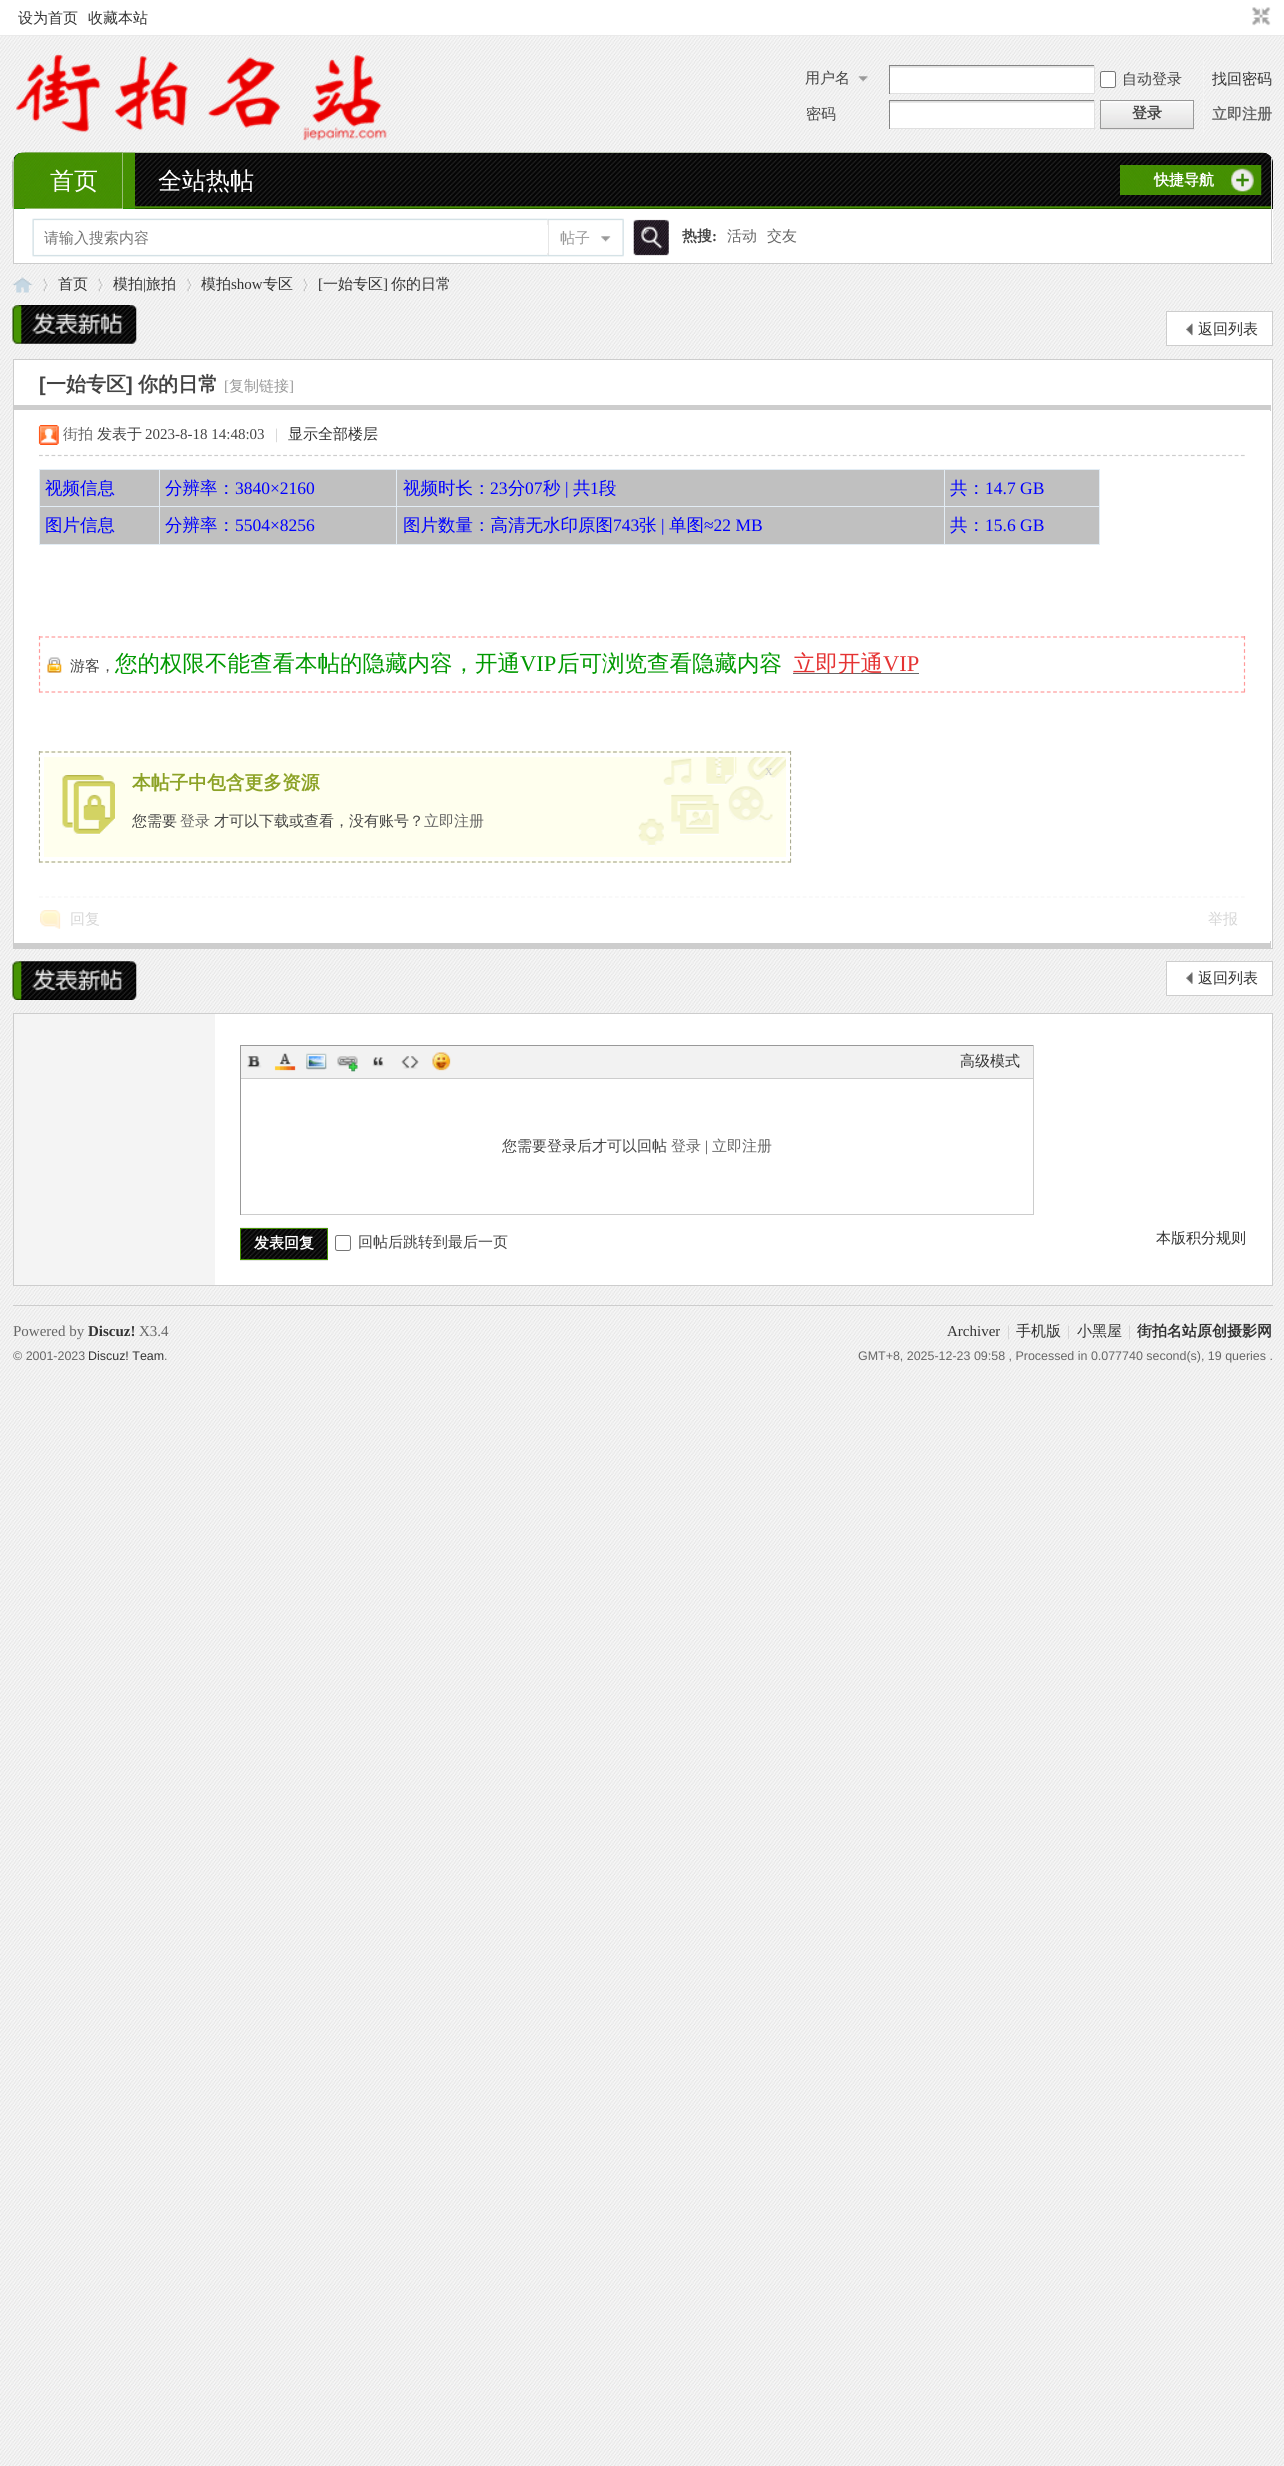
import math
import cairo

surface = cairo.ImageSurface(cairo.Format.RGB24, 1284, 2466)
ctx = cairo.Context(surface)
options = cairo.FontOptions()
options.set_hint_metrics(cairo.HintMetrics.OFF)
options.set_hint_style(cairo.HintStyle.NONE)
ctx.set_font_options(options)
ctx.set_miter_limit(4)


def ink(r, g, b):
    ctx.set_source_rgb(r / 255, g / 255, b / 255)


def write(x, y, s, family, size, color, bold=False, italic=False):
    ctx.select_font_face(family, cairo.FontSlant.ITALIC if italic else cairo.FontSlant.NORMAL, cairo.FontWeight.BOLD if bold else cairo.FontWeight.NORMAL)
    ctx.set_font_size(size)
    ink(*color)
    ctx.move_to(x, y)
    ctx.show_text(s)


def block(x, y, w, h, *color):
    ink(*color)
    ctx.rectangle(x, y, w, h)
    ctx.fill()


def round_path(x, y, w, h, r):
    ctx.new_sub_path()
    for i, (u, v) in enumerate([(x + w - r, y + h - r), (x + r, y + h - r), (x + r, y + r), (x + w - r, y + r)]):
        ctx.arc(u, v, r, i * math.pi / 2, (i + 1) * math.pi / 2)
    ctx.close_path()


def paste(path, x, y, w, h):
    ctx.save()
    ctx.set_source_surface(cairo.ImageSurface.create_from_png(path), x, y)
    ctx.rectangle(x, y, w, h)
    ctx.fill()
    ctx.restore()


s1 = dict(family="WenQuanYi Zen Hei Medium", size=15, color=(51, 51, 51))
s2 = dict(family="WenQuanYi Zen Hei Medium", size=15, color=(68, 68, 68))
s3 = dict(family="WenQuanYi Zen Hei", size=15, color=(68, 68, 68), bold=True)
s4 = dict(family="WenQuanYi Zen Hei", size=15, color=(102, 102, 102), bold=True)
s5 = dict(family="WenQuanYi Zen Hei Medium", size=24, color=(255, 255, 255))
s6 = dict(family="WenQuanYi Zen Hei", size=15, color=(255, 255, 255), bold=True)
s7 = dict(family="WenQuanYi Zen Hei Medium", size=15, color=(117, 117, 117))
s8 = dict(family="WenQuanYi Zen Hei Medium", size=15, color=(153, 153, 153))
s9 = dict(family="Liberation Serif", size=15, color=(68, 68, 68), bold=True)
s10 = dict(family="WenQuanYi Zen Hei Medium", size=15, color=(102, 102, 102))
s11 = dict(family="Liberation Serif", size=15, color=(51, 51, 51))
s12 = dict(family="Liberation Sans", size=20, color=(68, 68, 68), bold=True)
s13 = dict(family="WenQuanYi Zen Hei", size=20, color=(68, 68, 68), bold=True)
s14 = dict(family="Liberation Serif", size=15, color=(153, 153, 153))
s15 = dict(family="Liberation Serif", size=15, color=(68, 68, 68))
s16 = dict(family="Liberation Serif", size=15, color=(204, 204, 204))
s17 = dict(family="WenQuanYi Zen Hei Medium", size=17.5, color=(0, 0, 255))
s18 = dict(family="Liberation Serif", size=17.5, color=(0, 0, 255))
s19 = dict(family="WenQuanYi Zen Hei Medium", size=22.5, color=(0, 153, 0))
s20 = dict(family="Liberation Serif", size=22.5, color=(0, 153, 0))
s21 = dict(family="WenQuanYi Zen Hei Medium", size=22.5, color=(229, 51, 51))
s22 = dict(family="Liberation Serif", size=22.5, color=(229, 51, 51))
s23 = dict(family="WenQuanYi Zen Hei", size=18.75, color=(140, 162, 38), bold=True)
s24 = dict(family="WenQuanYi Zen Hei Medium", size=15, color=(214, 214, 214))
s25 = dict(family="Liberation Serif", size=15, color=(102, 102, 102))
s26 = dict(family="Liberation Serif", size=15, color=(51, 51, 51), bold=True)
s27 = dict(family="Liberation Sans", size=12.45, color=(102, 102, 102))
s28 = dict(family="Liberation Sans", size=12.45, color=(51, 51, 51))
s29 = dict(family="WenQuanYi Zen Hei", size=15, color=(51, 51, 51), bold=True)

ink(255, 255, 255)
ctx.paint()
paste("pic1.png", 0, 36, 1284, 2430)
block(0, 35, 1284, 1, 234, 234, 234)
write(18, 23, "设为首页", **s1)
write(88, 23, "收藏本站", **s1)
paste("pic2.png", 1252, 7, 19, 19)
paste("pic3.png", 16, 54, 371, 87)
paste("pic4.png", 858, 76, 10, 6)
write(805, 83, "用户名", **s2)
block(890, 66, 204, 27, 255, 255, 255)
paste("pic5.png", 888, 66, 206, 2)
block(889, 65, 206, 1, 132, 132, 132)
block(1094, 65, 1, 29, 224, 224, 224)
block(889, 93, 206, 1, 224, 224, 224)
block(889, 65, 1, 29, 132, 132, 132)
ink(255, 255, 255)
round_path(1100.5, 71.5, 15, 16, 2)
ctx.fill_preserve()
ink(118, 118, 118)
ctx.set_line_width(1)
ctx.stroke()
write(1122, 84, "自动登录", **s2)
write(1212, 84, "找回密码", **s1)
write(806, 119, "密码", **s2)
block(890, 101, 204, 27, 255, 255, 255)
paste("pic6.png", 888, 101, 206, 2)
block(889, 100, 206, 1, 132, 132, 132)
block(1094, 100, 1, 29, 224, 224, 224)
block(889, 128, 206, 1, 224, 224, 224)
block(889, 100, 1, 29, 132, 132, 132)
block(1203, 61, 1, 72, 244, 244, 244)
ink(229, 229, 229)
ctx.new_path()
ctx.move_to(1100, 129)
ctx.line_to(1100, 130)
ctx.line_to(1194, 130)
ctx.line_to(1194, 101)
ctx.line_to(1194, 129)
ctx.close_path()
ctx.fill()
paste("pic7.png", 1101, 101, 92, 27)
ctx.rectangle(1100.5, 100.5, 93, 28)
ink(153, 153, 153)
ctx.stroke()
write(1132, 118, "登录", **s3)
write(1212, 119, "立即注册", **s4)
ink(0, 0, 0)
ctx.new_path()
ctx.move_to(23, 153)
ctx.line_to(1263, 153)
ctx.curve_to(1268.5, 153, 1273, 157.5, 1273, 163)
ctx.line_to(1273, 209)
ctx.line_to(13, 209)
ctx.line_to(13, 163)
ctx.curve_to(13, 157.5, 17.5, 153, 23, 153)
ctx.close_path()
ctx.fill()
paste("pic8.png", 12, 152, 1261, 57)
block(1271, 158, 1, 51, 205, 205, 205)
block(13, 158, 1, 51, 205, 205, 205)
ink(0, 153, 0)
ctx.new_path()
ctx.move_to(135, 209)
ctx.line_to(14, 209)
ctx.line_to(14, 162)
ctx.curve_to(14, 158, 16, 154, 20, 153)
ctx.line_to(135, 153)
ctx.close_path()
ctx.fill()
paste("pic9.png", 13, 152, 122, 57)
block(25, 153, 98, 56, 238, 238, 238)
paste("pic10.png", 25, 152, 98, 57)
write(50, 189, "首页", **s5)
write(158, 189, "全站热帖", **s5)
paste("pic11.png", 1120, 165, 142, 30)
write(1154, 185, "快捷导航", **s6)
block(14, 209, 1259, 54, 255, 255, 255)
block(1271, 209, 1, 55, 204, 204, 204)
block(13, 263, 1260, 1, 204, 204, 204)
block(13, 209, 1, 55, 204, 204, 204)
paste("pic12.png", 32, 218, 8, 39)
paste("pic13.png", 40, 218, 508, 39)
paste("pic14.png", 547, 218, 77, 39)
block(547, 225, 1, 28, 255, 255, 255)
write(44, 243, "请输入搜索内容", **s7)
write(560, 243, "帖子", **s8)
paste("pic15.png", 633, 219, 36, 37)
write(682, 241, "热搜", **s3)
write(712, 241, ":", **s9)
write(727, 241, "活动", **s10)
write(767, 241, "交友", **s10)
paste("pic16.png", 12, 277, 21, 16)
paste("pic17.png", 43, 278, 6, 14)
write(58, 289, "首页", **s1)
paste("pic17.png", 98, 278, 6, 14)
write(113, 289, "模拍", **s1)
write(143, 289, "|", **s11)
write(146, 289, "旅拍", **s1)
paste("pic18.png", 187, 278, 6, 14)
write(201, 289, "模拍", **s1)
write(231, 289, "show", **s11)
write(263, 289, "专区", **s1)
paste("pic19.png", 303, 278, 6, 14)
write(318, 289, "[", **s11)
write(323, 289, "一始专区", **s1)
write(383, 289, "]", **s11)
write(391, 289, "你的日常", **s1)
paste("pic20.png", 12, 305, 125, 39)
block(1167, 312, 105, 33, 255, 255, 255)
paste("pic21.png", 1186, 323, 7, 13)
ctx.rectangle(1166.5, 311.5, 106, 34)
ink(205, 205, 205)
ctx.stroke()
write(1198, 334, "返回列表", **s1)
ink(255, 255, 255)
ctx.rectangle(13.5, 359.5, 1259, 589)
ctx.fill_preserve()
ink(205, 205, 205)
ctx.stroke()
write(39, 391, "[", **s12)
write(46, 391, "一始专区", **s13)
write(126, 391, "]", **s12)
write(138, 391, "你的日常", **s13)
write(224, 391, "[", **s14)
write(229, 391, "复制链接", **s8)
write(289, 391, "]", **s14)
block(1270, 405, 1, 6, 205, 205, 205)
block(14, 405, 1256, 5, 205, 205, 205)
ctx.new_path()
ctx.move_to(39, 455.5)
ctx.line_to(1245, 455.5)
ctx.set_line_width(1.2)
ctx.set_dash([3.75, 2.51])
ctx.stroke()
paste("pic22.png", 38, 425, 21, 20)
write(63, 439, "街拍", **s10)
write(97, 439, "发表于", **s2)
write(145, 439, "2023-8-18 14:48:03", **s15)
write(275, 439, "|", **s16)
write(288, 439, "显示全部楼层", **s1)
block(40, 470, 1059, 74, 192, 192, 192)
block(39, 469, 1061, 1, 227, 237, 245)
block(1099, 469, 1, 76, 227, 237, 245)
block(39, 544, 1061, 1, 227, 237, 245)
block(39, 469, 1, 76, 227, 237, 245)
write(45, 494, "视频信息", **s17)
block(944, 506, 156, 1, 227, 237, 245)
block(944, 506, 1, 39, 227, 237, 245)
block(396, 506, 549, 1, 227, 237, 245)
block(396, 506, 1, 39, 227, 237, 245)
block(159, 506, 239, 1, 227, 237, 245)
block(159, 506, 1, 39, 227, 237, 245)
block(39, 506, 121, 1, 227, 237, 245)
block(159, 469, 1, 39, 227, 237, 245)
write(165, 494, "分辨率：", **s17)
write(235, 494, "3840×2160", **s18)
block(396, 469, 1, 39, 227, 237, 245)
write(403, 494, "视频时长：", **s17)
write(490, 494, "23", **s18)
write(508, 494, "分", **s17)
write(525, 494, "07", **s18)
write(543, 494, "秒", **s17)
write(565, 494, "|", **s18)
write(573, 494, "共", **s17)
write(590, 494, "1", **s18)
write(599, 494, "段", **s17)
block(944, 469, 1, 39, 227, 237, 245)
write(950, 494, "共：", **s17)
write(985, 494, "14.7 GB", **s18)
write(45, 531, "图片信息", **s17)
write(165, 531, "分辨率：", **s17)
write(235, 531, "5504×8256", **s18)
write(403, 531, "图片数量：高清无水印原图", **s17)
write(613, 531, "743", **s18)
write(639, 531, "张", **s17)
write(661, 531, "|", **s18)
write(669, 531, "单图", **s17)
write(704, 531, "≈22 MB", **s18)
write(950, 531, "共：", **s17)
write(985, 531, "15.6 GB", **s18)
paste("pic23.png", 47, 657, 15, 16)
ctx.new_path()
ctx.move_to(39, 637)
ctx.line_to(1245, 637)
ink(255, 154, 154)
ctx.stroke()
ctx.new_path()
ctx.move_to(1244.5, 636)
ctx.line_to(1244.5, 692.5)
ctx.set_dash([3.75, 2.81])
ctx.stroke()
ctx.new_path()
ctx.move_to(39, 692)
ctx.line_to(1245, 692)
ctx.set_dash([3.75, 2.51])
ctx.stroke()
ctx.new_path()
ctx.move_to(39.5, 636)
ctx.line_to(39.5, 692.5)
ctx.set_dash([3.75, 2.81])
ctx.stroke()
write(70, 671, "游客，", **s2)
write(115, 671, "您的权限不能查看本帖的隐藏内容，开通", **s19)
write(520, 671, "VIP", **s20)
write(557, 671, "后可浏览查看隐藏内容", **s19)
block(793, 673, 126, 1, 102, 102, 102)
write(793, 671, "立即开通", **s21)
write(883, 671, "VIP", **s22)
block(39, 751, 752, 112, 255, 255, 238)
paste("pic24.png", 638, 752, 149, 95)
ctx.new_path()
ctx.move_to(39, 752)
ctx.line_to(791, 752)
ink(170, 170, 146)
ctx.set_dash([3.75, 2.49])
ctx.stroke()
ctx.new_path()
ctx.move_to(790.5, 751)
ctx.line_to(790.5, 862.5)
ctx.set_dash([3.75, 2.58])
ctx.stroke()
ctx.new_path()
ctx.move_to(39, 862)
ctx.line_to(791, 862)
ctx.set_dash([3.75, 2.49])
ctx.stroke()
ctx.new_path()
ctx.move_to(39.5, 751)
ctx.line_to(39.5, 862.5)
ctx.set_dash([3.75, 2.58])
ctx.stroke()
paste("pic25.png", 62, 775, 53, 60)
ctx.rectangle(42, 755, 746, 104)
ink(255, 255, 255)
ctx.set_line_width(4)
ctx.set_dash([])
ctx.stroke()
write(765, 775, "x", **s16)
write(132, 789, "本帖子中包含更多资源", **s23)
write(132, 826, "您需要", **s2)
write(180, 826, "登录", **s10)
write(214, 826, "才可以下载或查看，没有账号？", **s2)
write(424, 826, "立即注册", **s10)
ctx.new_path()
ctx.move_to(39, 897)
ctx.line_to(1245, 897)
ink(245, 245, 245)
ctx.set_line_width(1.2)
ctx.set_dash([3.75, 2.51])
ctx.stroke()
paste("pic26.png", 40, 910, 21, 19)
write(70, 924, "回复", **s24)
write(1208, 924, "举报", **s24)
block(1270, 941, 1, 7, 205, 205, 205)
block(14, 943, 1256, 5, 205, 205, 205)
paste("pic27.png", 12, 961, 125, 39)
block(1167, 962, 105, 33, 255, 255, 255)
paste("pic28.png", 1186, 972, 7, 12)
ctx.rectangle(1166.5, 961.5, 106, 34)
ink(205, 205, 205)
ctx.set_line_width(1)
ctx.set_dash([])
ctx.stroke()
write(1198, 983, "返回列表", **s1)
block(215, 1014, 1057, 271, 255, 255, 255)
ctx.rectangle(13.5, 1013.5, 1259, 272)
ink(205, 205, 205)
ctx.stroke()
block(14, 1014, 201, 271, 244, 244, 244)
block(240, 1045, 794, 1, 153, 153, 153)
block(1033, 1045, 1, 170, 204, 204, 204)
block(240, 1214, 794, 1, 204, 204, 204)
block(240, 1045, 1, 170, 153, 153, 153)
block(241, 1046, 792, 32, 242, 242, 242)
block(241, 1078, 792, 1, 205, 205, 205)
paste("pic29.png", 247, 1056, 15, 12)
paste("pic30.png", 274, 1053, 22, 18)
paste("pic31.png", 306, 1053, 21, 17)
paste("pic32.png", 337, 1056, 22, 16)
paste("pic33.png", 372, 1057, 12, 10)
paste("pic34.png", 401, 1056, 18, 13)
paste("pic35.png", 432, 1052, 19, 19)
write(960, 1066, "高级模式", **s1)
write(502, 1151, "您需要登录后才可以回帖", **s2)
write(671, 1151, "登录", **s10)
write(705, 1151, "|", **s15)
write(712, 1151, "立即注册", **s10)
ink(229, 229, 229)
ctx.new_path()
ctx.move_to(240, 1260)
ctx.line_to(240, 1261)
ctx.line_to(328, 1261)
ctx.line_to(328, 1229)
ctx.line_to(328, 1260)
ctx.close_path()
ctx.fill()
paste("pic36.png", 240, 1227, 88, 32)
ctx.rectangle(240.5, 1228.5, 87, 31)
ink(70, 148, 2)
ctx.stroke()
write(254, 1248, "发表回复", **s6)
round_path(335.5, 1235.5, 15, 15, 2)
ink(118, 118, 118)
ctx.stroke()
write(358, 1247, "回帖后跳转到最后一页", **s2)
write(1156, 1243, "本版积分规则", **s1)
block(13, 1305, 1260, 1, 205, 205, 205)
write(13, 1336, "Powered by", **s25)
write(88, 1336, "Discuz!", **s26)
write(139, 1336, "X3.4", **s25)
write(13, 1360, "© 2001-2023", **s27)
write(88, 1360, "Discuz! Team", **s28)
write(164, 1360, ".", **s27)
write(947, 1336, "Archiver", **s11)
write(1007, 1336, "|", **s16)
write(1016, 1336, "手机版", **s1)
write(1067, 1336, "|", **s16)
write(1077, 1336, "小黑屋", **s1)
write(1128, 1336, "|", **s16)
write(1137, 1336, "街拍名站原创摄影网", **s29)
write(858, 1360, "GMT+8, 2025-12-23 09:58 , Processed in 0.077740 second(s), 19 queries .", **s27)
surface.write_to_png("screenshot.png")
